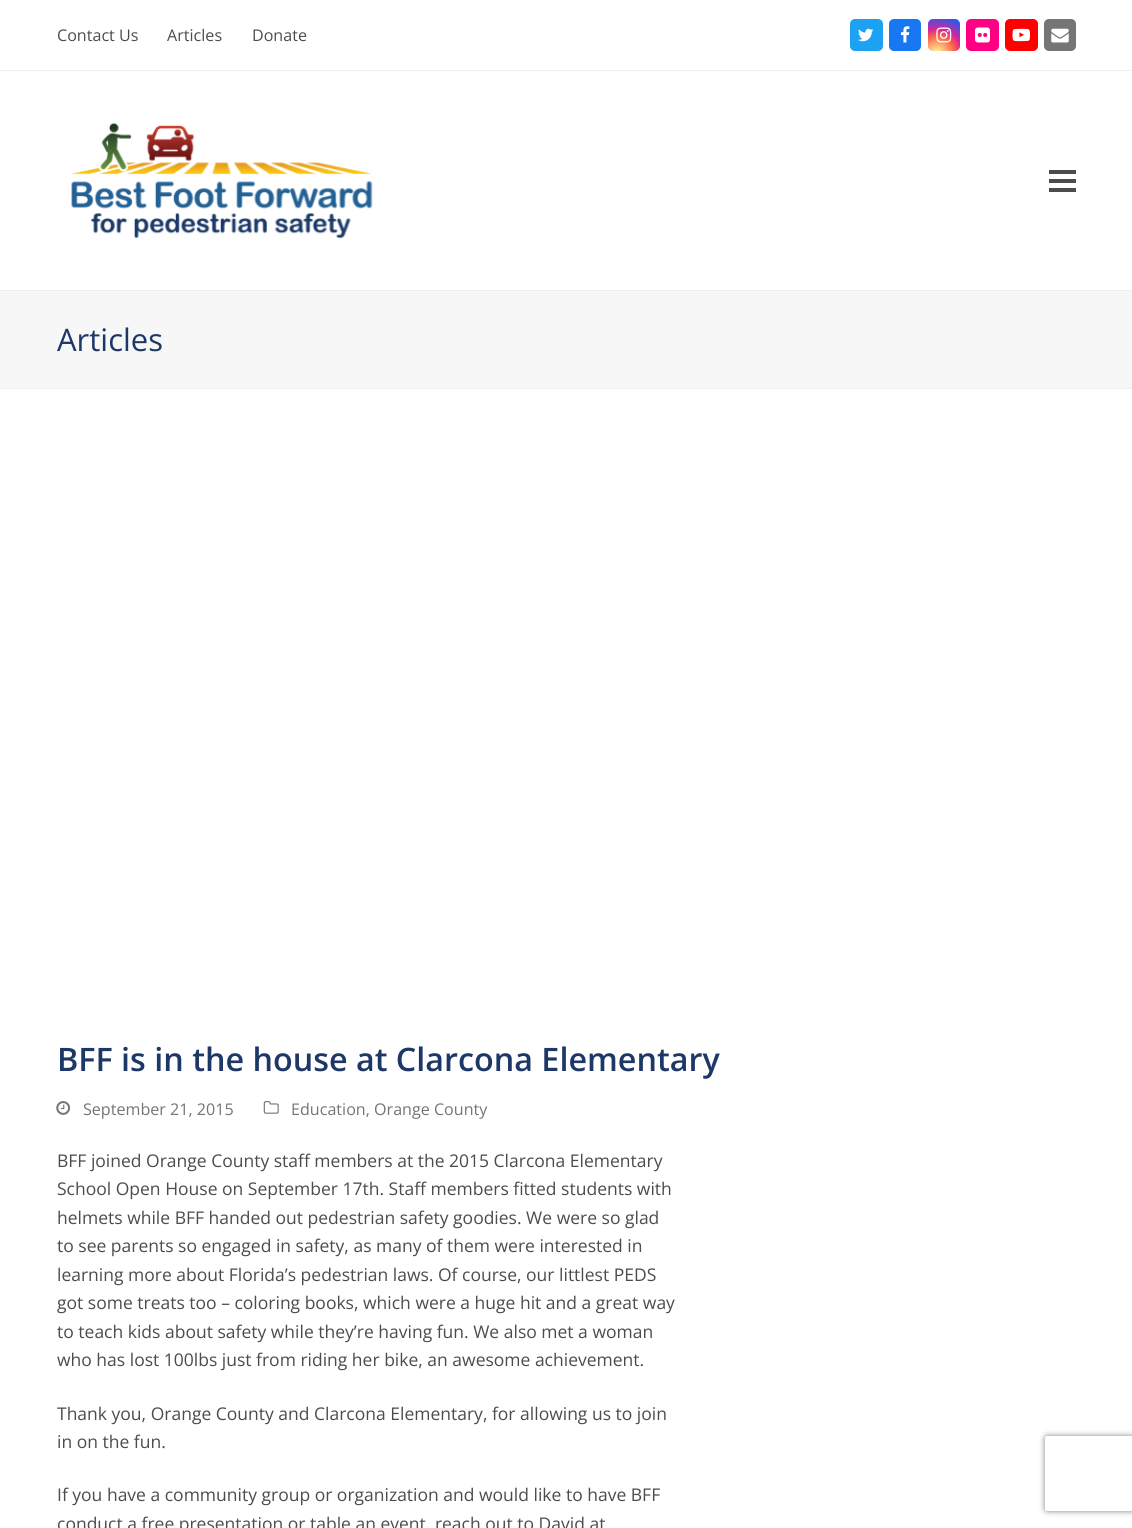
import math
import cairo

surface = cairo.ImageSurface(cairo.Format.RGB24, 1132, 1528)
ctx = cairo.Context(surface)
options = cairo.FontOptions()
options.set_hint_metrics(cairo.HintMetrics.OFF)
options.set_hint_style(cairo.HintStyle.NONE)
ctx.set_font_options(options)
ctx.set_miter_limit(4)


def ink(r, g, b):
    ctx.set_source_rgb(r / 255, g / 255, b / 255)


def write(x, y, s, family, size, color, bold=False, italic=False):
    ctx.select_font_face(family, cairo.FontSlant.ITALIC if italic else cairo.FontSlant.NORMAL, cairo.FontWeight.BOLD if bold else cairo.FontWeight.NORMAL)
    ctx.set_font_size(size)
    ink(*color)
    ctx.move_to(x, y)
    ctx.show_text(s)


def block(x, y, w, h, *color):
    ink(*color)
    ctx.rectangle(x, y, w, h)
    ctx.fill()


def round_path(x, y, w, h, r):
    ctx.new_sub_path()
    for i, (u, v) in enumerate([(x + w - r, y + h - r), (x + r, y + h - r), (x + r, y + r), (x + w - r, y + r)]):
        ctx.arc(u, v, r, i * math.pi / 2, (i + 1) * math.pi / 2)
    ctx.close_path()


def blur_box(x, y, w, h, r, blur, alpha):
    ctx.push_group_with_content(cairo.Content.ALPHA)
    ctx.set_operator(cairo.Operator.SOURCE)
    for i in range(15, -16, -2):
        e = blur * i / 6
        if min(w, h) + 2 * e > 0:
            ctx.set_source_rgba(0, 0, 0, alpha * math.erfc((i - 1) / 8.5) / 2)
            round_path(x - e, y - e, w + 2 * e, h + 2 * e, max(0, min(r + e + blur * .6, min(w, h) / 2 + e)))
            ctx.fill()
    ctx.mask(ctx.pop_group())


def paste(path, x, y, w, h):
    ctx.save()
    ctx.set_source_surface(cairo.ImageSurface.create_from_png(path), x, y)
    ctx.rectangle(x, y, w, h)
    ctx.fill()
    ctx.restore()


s1 = dict(family="Open Sans", size=16.1, color=(76, 76, 76))
s2 = dict(family="Open Sans", size=31, color=(29, 55, 103))
s3 = dict(family="Open Sans SemiBold", size=32.3, color=(29, 55, 103))
s4 = dict(family="Open Sans", size=16.1, color=(117, 117, 117))
s5 = dict(family="Open Sans", size=17.5, color=(76, 76, 76))

ink(255, 255, 255)
ctx.paint()
block(0, 70, 1132, 1, 238, 238, 238)
write(57, 41, "Contact Us", **s1)
write(167, 41, "Articles", **s1)
write(252, 41, "Donate", **s1)
ink(29, 161, 242)
round_path(850, 19, 33, 32, 5)
ctx.fill()
paste("pic1.png", 858, 28, 16, 14)
ink(24, 119, 242)
round_path(889, 19, 32, 32, 5)
ctx.fill()
paste("pic2.png", 900, 26, 10, 17)
gradient = cairo.RadialGradient(937, 54, 0, 937, 54, 42)
gradient.add_color_stop_rgba(0, 0.992, 0.957, 0.592, 1)
gradient.add_color_stop_rgba(0.05, 0.992, 0.957, 0.592, 1)
gradient.add_color_stop_rgba(0.45, 0.992, 0.349, 0.286, 1)
gradient.add_color_stop_rgba(0.6, 0.839, 0.141, 0.624, 1)
gradient.add_color_stop_rgba(0.9, 0.157, 0.353, 0.922, 1)
ctx.set_source(gradient)
round_path(928, 19, 32, 32, 5)
ctx.fill()
paste("pic3.png", 936, 27, 16, 16)
ink(255, 0, 132)
round_path(966, 19, 33, 32, 5)
ctx.fill()
paste("pic4.png", 975, 27, 15, 16)
ink(255, 0, 0)
round_path(1005, 19, 33, 32, 5)
ctx.fill()
paste("pic5.png", 1012, 28, 18, 14)
ink(117, 117, 117)
round_path(1044, 19, 32, 32, 5)
ctx.fill()
paste("pic6.png", 1051, 28, 18, 15)
paste("pic7.png", 71, 123, 302, 116)
block(1049, 179, 27, 4, 76, 76, 76)
block(1049, 170, 27, 4, 76, 76, 76)
block(1049, 188, 27, 4, 76, 76, 76)
block(0, 291, 1132, 97, 247, 247, 247)
block(0, 290, 1132, 1, 238, 238, 238)
block(0, 388, 1132, 1, 238, 238, 238)
write(57, 351, "Articles", **s2)
write(57, 1071, "BFF is in the house at Clarcona Elementary", **s3)
paste("pic8.png", 56, 1101, 15, 14)
write(83, 1115, "September 21, 2015", **s4)
paste("pic9.png", 263, 1101, 16, 13)
write(291, 1115, "Education, Orange County", **s4)
write(57, 1167, "BFF joined Orange County staff members at the 2015 Clarcona Elementary", **s5)
write(57, 1195, "School Open House on September 17th. Staff members fitted students with", **s5)
write(57, 1224, "helmets while BFF handed out pedestrian safety goodies. We were so glad", **s5)
write(57, 1252, "to see parents so engaged in safety, as many of them were interested in", **s5)
write(57, 1281, "learning more about Florida’s pedestrian laws. Of course, our littlest PEDS", **s5)
write(57, 1309, "got some treats too – coloring books, which were a huge hit and a great way", **s5)
write(57, 1338, "to teach kids about safety while they’re having fun. We also met a woman", **s5)
write(57, 1366, "who has lost 100lbs just from riding her bike, an awesome achievement.", **s5)
write(57, 1420, "Thank you, Orange County and Clarcona Elementary, for allowing us to join", **s5)
write(57, 1448, "in on the fun.", **s5)
write(57, 1501, "If you have a community group or organization and would like to have BFF", **s5)
write(57, 1530, "conduct a free presentation or table an event, reach out to David at", **s5)
ctx.save()
ctx.set_fill_rule(cairo.FillRule.EVEN_ODD)
ctx.new_path()
ctx.move_to(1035, 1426)
ctx.line_to(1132, 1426)
ctx.line_to(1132, 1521)
ctx.line_to(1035, 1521)
ctx.close_path()
ctx.move_to(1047.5, 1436)
ctx.line_to(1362.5, 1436)
ctx.curve_to(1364, 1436, 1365, 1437, 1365, 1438.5)
ctx.line_to(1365, 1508.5)
ctx.curve_to(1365, 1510, 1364, 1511, 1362.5, 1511)
ctx.line_to(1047.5, 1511)
ctx.curve_to(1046, 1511, 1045, 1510, 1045, 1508.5)
ctx.line_to(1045, 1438.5)
ctx.curve_to(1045, 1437, 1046, 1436, 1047.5, 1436)
ctx.close_path()
ctx.clip()
ink(128, 128, 128)
blur_box(1045, 1436, 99, 75, 2.5, 3, 1)
ctx.restore()
surface.write_to_png("screenshot.png")
